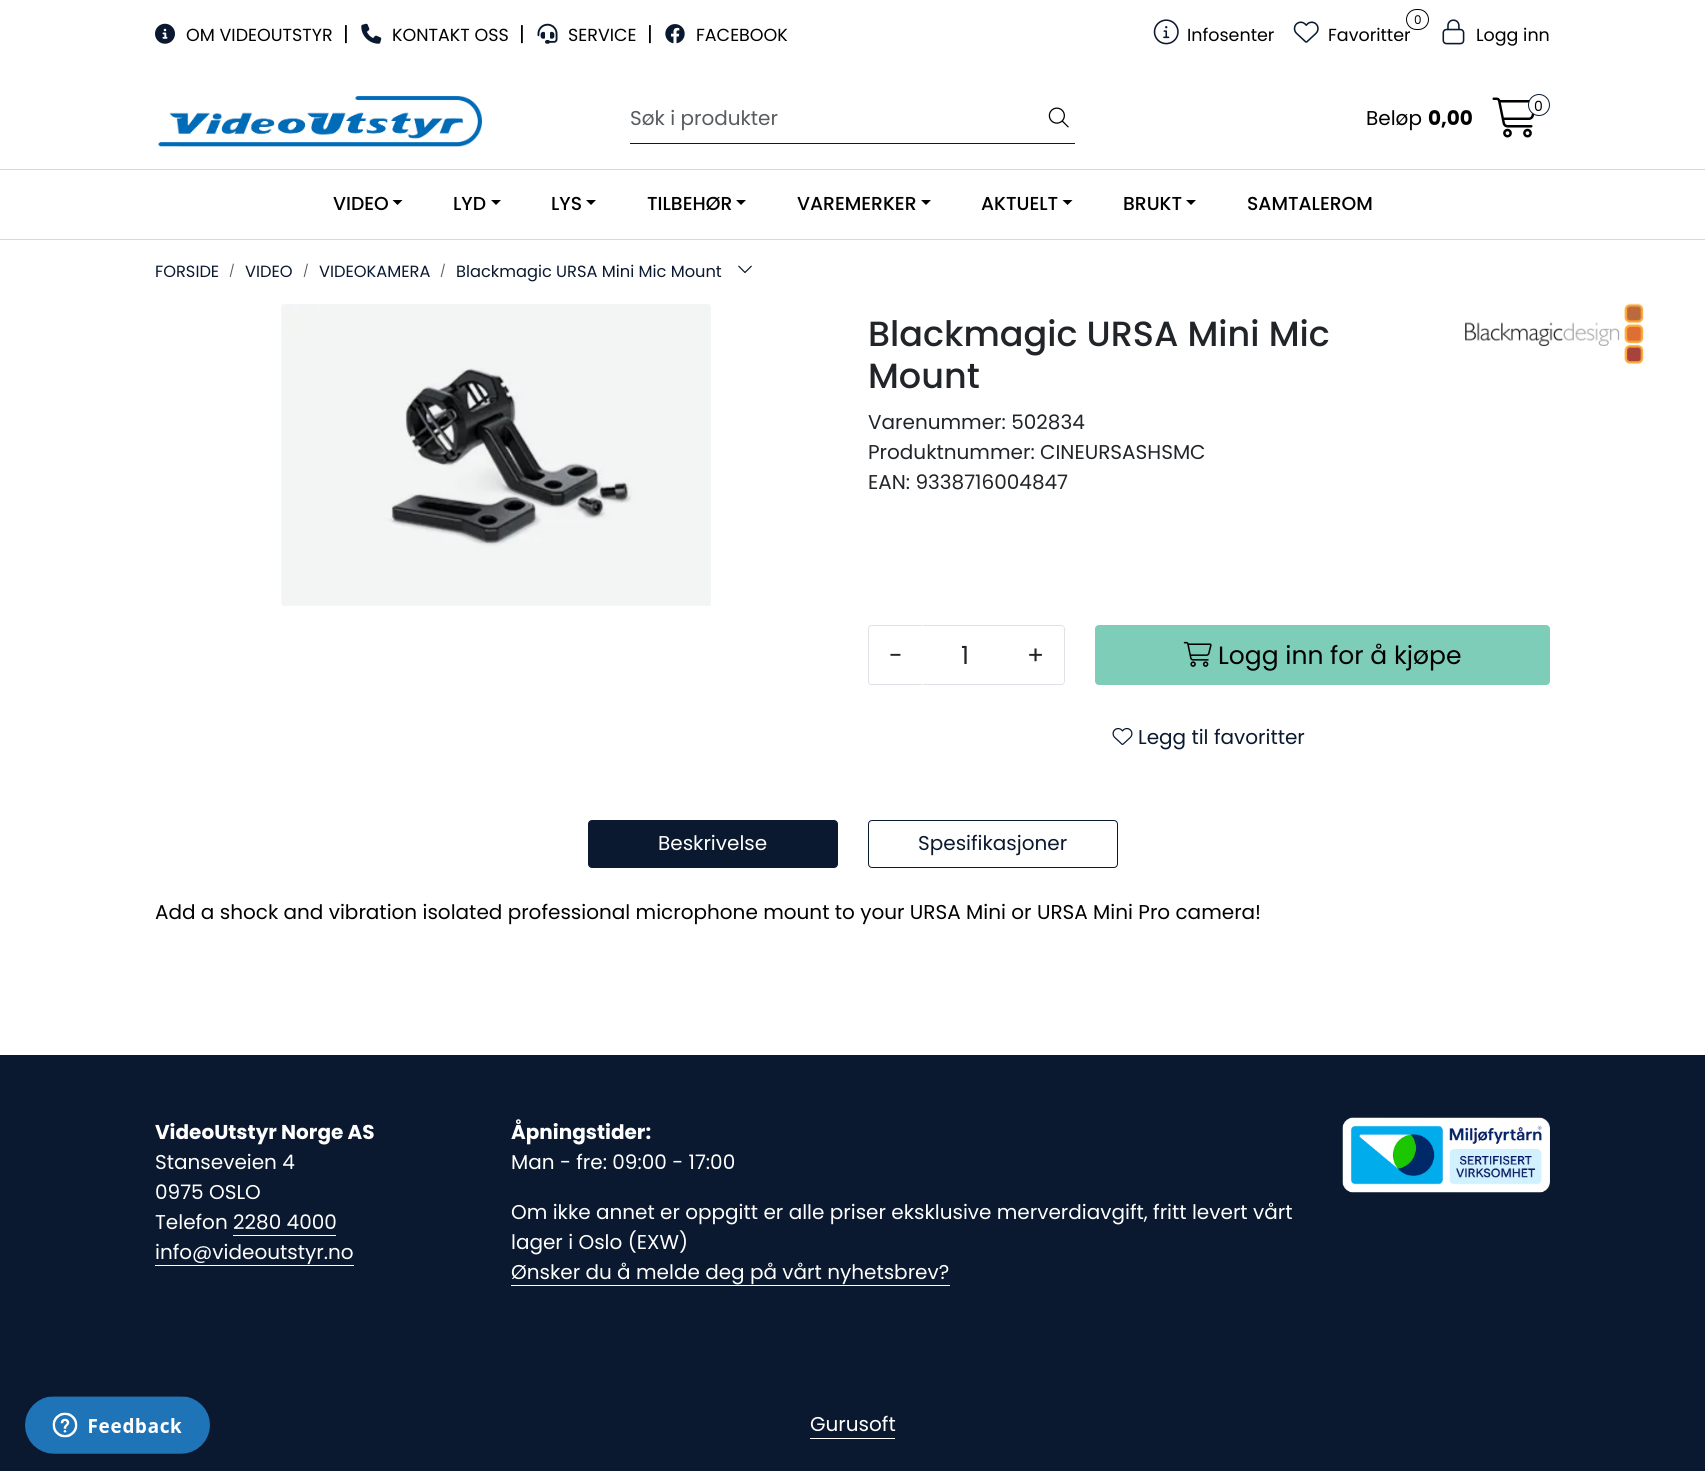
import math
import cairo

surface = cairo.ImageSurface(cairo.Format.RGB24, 1705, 1471)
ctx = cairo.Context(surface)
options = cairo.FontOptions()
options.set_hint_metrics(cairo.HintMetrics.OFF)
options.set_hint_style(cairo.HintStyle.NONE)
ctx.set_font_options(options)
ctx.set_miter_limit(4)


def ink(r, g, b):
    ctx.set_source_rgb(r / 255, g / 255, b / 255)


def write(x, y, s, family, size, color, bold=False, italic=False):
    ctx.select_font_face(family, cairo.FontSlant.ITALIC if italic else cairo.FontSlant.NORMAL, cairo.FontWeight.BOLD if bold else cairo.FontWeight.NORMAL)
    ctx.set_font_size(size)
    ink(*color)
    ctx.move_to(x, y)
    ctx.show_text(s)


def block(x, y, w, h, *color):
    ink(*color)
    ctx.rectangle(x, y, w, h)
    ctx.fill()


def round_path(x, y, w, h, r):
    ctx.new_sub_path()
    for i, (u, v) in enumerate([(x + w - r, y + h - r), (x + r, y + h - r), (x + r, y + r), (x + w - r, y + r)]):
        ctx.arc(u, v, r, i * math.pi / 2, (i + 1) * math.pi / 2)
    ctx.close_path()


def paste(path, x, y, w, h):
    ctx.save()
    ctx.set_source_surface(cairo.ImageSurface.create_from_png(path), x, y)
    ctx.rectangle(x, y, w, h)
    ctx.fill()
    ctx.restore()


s1 = dict(family="Poppins", size=17.5, color=(0, 0, 0))
s2 = dict(family="Poppins", size=20, color=(0, 0, 0))
s3 = dict(family="Poppins", size=12, color=(0, 0, 0))
s4 = dict(family="Poppins", size=20, color=(89, 92, 95))
s5 = dict(family="Poppins", size=14, color=(0, 0, 0))
s6 = dict(family="Poppins", size=20, color=(0, 0, 0), bold=True)
s7 = dict(family="Poppins Medium", size=18.75, color=(0, 0, 0))
s8 = dict(family="Poppins", size=16.25, color=(10, 25, 47))
s9 = dict(family="Poppins", size=12, color=(89, 92, 95))
s10 = dict(family="Poppins Medium", size=35, color=(33, 37, 41))
s11 = dict(family="Poppins", size=20, color=(33, 37, 41))
s12 = dict(family="Poppins", size=25, color=(33, 37, 41))
s13 = dict(family="Poppins", size=25, color=(0, 0, 0))
s14 = dict(family="Poppins", size=20, color=(10, 25, 47))
s15 = dict(family="Poppins", size=20, color=(255, 255, 255))
s16 = dict(family="Poppins", size=20, color=(255, 255, 255), bold=True)

ink(255, 255, 255)
ctx.paint()
paste("pic1.png", 155, 23, 20, 21)
write(186, 41, "OM VIDEOUTSTYR", **s1)
write(343, 41, "|", **s2)
paste("pic2.png", 361, 23, 21, 21)
write(392, 41, "KONTAKT OSS", **s1)
write(519, 41, "|", **s2)
paste("pic3.png", 537, 23, 21, 21)
write(568, 41, "SERVICE", **s1)
write(647, 41, "|", **s2)
paste("pic4.png", 665, 24, 20, 20)
write(696, 41, "FACEBOOK", **s1)
paste("pic5.png", 1153, 19, 26, 26)
write(1187, 41, "Infosenter", **s1)
round_path(1406.5, 9.5, 22, 20, 10)
ctx.set_line_width(1)
ctx.stroke()
write(1414, 24, "0", **s3)
paste("pic6.png", 1293, 21, 26, 22)
write(1328, 41, "Favoritter", **s1)
paste("pic7.png", 1442, 19, 23, 26)
write(1476, 41, "Logg inn", **s1)
paste("pic8.png", 158, 95, 324, 52)
block(630, 143, 445, 1, 10, 25, 47)
write(630, 125, "Søk i produkter", **s4)
paste("pic9.png", 1048, 107, 21, 21)
paste("pic10.png", 1492, 97, 43, 41)
ink(255, 255, 255)
ctx.arc(1539, 105, 10.5, 0, 2 * math.pi)
ctx.fill_preserve()
ink(10, 25, 47)
ctx.stroke()
write(1534, 111, "0", **s5)
write(1366, 125, "Beløp", **s2)
write(1428, 125, "0,00", **s6)
block(0, 169, 1705, 1, 214, 216, 221)
block(0, 239, 1705, 1, 214, 216, 221)
write(333, 210, "VIDEO", **s7)
ctx.new_path()
ctx.move_to(392.5, 200)
ctx.line_to(402.5, 200)
ctx.line_to(397.5, 205)
ctx.close_path()
ctx.fill()
write(453, 210, "LYD", **s7)
ctx.new_path()
ctx.move_to(491, 200)
ctx.line_to(501, 200)
ctx.line_to(496, 205)
ctx.close_path()
ctx.fill()
write(551, 210, "LYS", **s7)
ctx.new_path()
ctx.move_to(586, 200)
ctx.line_to(596, 200)
ctx.line_to(591, 205)
ctx.close_path()
ctx.fill()
write(647, 210, "TILBEHØR", **s7)
ctx.new_path()
ctx.move_to(736, 200)
ctx.line_to(746, 200)
ctx.line_to(741, 205)
ctx.close_path()
ctx.fill()
write(797, 210, "VAREMERKER", **s7)
ctx.new_path()
ctx.move_to(921, 200)
ctx.line_to(931, 200)
ctx.line_to(926, 205)
ctx.close_path()
ctx.fill()
write(981, 210, "AKTUELT", **s7)
ctx.new_path()
ctx.move_to(1062.5, 200)
ctx.line_to(1072.5, 200)
ctx.line_to(1067.5, 205)
ctx.close_path()
ctx.fill()
write(1123, 210, "BRUKT", **s7)
ctx.new_path()
ctx.move_to(1186, 200)
ctx.line_to(1196, 200)
ctx.line_to(1191, 205)
ctx.close_path()
ctx.fill()
write(1247, 210, "SAMTALEROM", **s7)
write(155, 277, "FORSIDE", **s8)
write(229, 275, "/", **s9)
write(245, 277, "VIDEO", **s8)
write(303, 275, "/", **s9)
write(319, 277, "VIDEOKAMERA", **s8)
write(440, 275, "/", **s9)
write(456, 277, "Blackmagic URSA Mini Mic Mount", **s8)
paste("pic11.png", 738, 265, 14, 8)
paste("pic12.png", 281, 304, 430, 302)
write(868, 346, "Blackmagic URSA Mini Mic", **s10)
write(868, 388, "Mount", **s10)
write(868, 429, "Varenummer: 502834", **s11)
write(868, 459, "Produktnummer: CINEURSASHSMC", **s11)
write(868, 489, "EAN: 9338716004847", **s11)
paste("pic13.png", 1465, 303, 179, 61)
block(921, 625, 87, 1, 222, 226, 230)
block(921, 684, 87, 1, 222, 226, 230)
ink(255, 255, 255)
ctx.new_path()
ctx.move_to(872, 625)
ctx.line_to(923, 625)
ctx.line_to(923, 685)
ctx.line_to(872, 685)
ctx.curve_to(870, 685, 868, 683, 868, 681)
ctx.line_to(868, 629)
ctx.curve_to(868, 627, 870, 625, 872, 625)
ctx.close_path()
ctx.fill()
ink(222, 226, 230)
ctx.set_fill_rule(cairo.FillRule.EVEN_ODD)
ctx.new_path()
ctx.move_to(871, 625)
ctx.line_to(922, 625)
ctx.line_to(922, 685)
ctx.line_to(871, 685)
ctx.curve_to(869, 685, 868, 683, 868, 681)
ctx.line_to(868, 629)
ctx.curve_to(868, 627, 869, 625, 871, 625)
ctx.close_path()
ctx.move_to(871, 626)
ctx.line_to(922, 626)
ctx.line_to(922, 684)
ctx.line_to(871, 684)
ctx.curve_to(870, 684, 869, 683, 869, 681)
ctx.line_to(869, 629)
ctx.curve_to(869, 627, 870, 626, 871, 626)
ctx.close_path()
ctx.fill()
write(889, 664, "-", **s12)
write(961, 664, "1", **s12)
ink(255, 255, 255)
ctx.new_path()
ctx.move_to(1006, 625)
ctx.line_to(1061, 625)
ctx.curve_to(1063, 625, 1065, 627, 1065, 629)
ctx.line_to(1065, 681)
ctx.curve_to(1065, 683, 1063, 685, 1061, 685)
ctx.line_to(1006, 685)
ctx.close_path()
ctx.fill()
ink(222, 226, 230)
ctx.new_path()
ctx.move_to(1006, 625)
ctx.line_to(1061, 625)
ctx.curve_to(1063, 625, 1065, 627, 1065, 629)
ctx.line_to(1065, 681)
ctx.curve_to(1065, 683, 1063, 685, 1061, 685)
ctx.line_to(1006, 685)
ctx.close_path()
ctx.move_to(1006, 626)
ctx.line_to(1061, 626)
ctx.curve_to(1063, 626, 1064, 627, 1064, 629)
ctx.line_to(1064, 681)
ctx.curve_to(1064, 683, 1063, 684, 1061, 684)
ctx.line_to(1006, 684)
ctx.close_path()
ctx.fill()
write(1027, 664, "+", **s12)
ink(125, 205, 184)
round_path(1095.5, 625.5, 454, 59, 3.5)
ctx.fill_preserve()
ctx.stroke()
paste("pic14.png", 1183, 641, 29, 26)
write(1218, 664, "Logg inn for å kjøpe", **s13)
paste("pic15.png", 1112, 727, 21, 18)
write(1138, 744, "Legg til favoritter", **s14)
round_path(588.5, 820.5, 249, 47, 3.5)
ctx.fill_preserve()
ctx.stroke()
write(658, 850, "Beskrivelse", **s15)
round_path(868.5, 820.5, 249, 47, 3.5)
ink(10, 25, 47)
ctx.stroke()
write(918, 850, "Spesifikasjoner", **s14)
write(155, 919, "Add a shock and vibration isolated professional microphone mount to your URSA Mini or URSA Mini Pro camera!", **s2)
block(0, 1055, 1705, 416, 10, 25, 47)
paste("pic16.png", 25, 1396, 185, 58)
write(155, 1139, "VideoUtstyr Norge AS", **s16)
write(155, 1169, "Stanseveien 4", **s15)
write(155, 1199, "0975 OSLO", **s15)
write(155, 1229, "Telefon 2280 4000", **s15)
block(233, 1235, 103, 1, 255, 255, 255)
write(155, 1259, "info@videoutstyr.no", **s15)
block(155, 1265, 199, 1, 255, 255, 255)
write(511, 1139, "Åpningstider:", **s16)
write(511, 1169, "Man - fre: 09:00 - 17:00", **s15)
write(511, 1219, "Om ikke annet er oppgitt er alle priser eksklusive merverdiavgift, fritt levert vårt", **s15)
write(511, 1249, "lager i Oslo (EXW)", **s15)
write(511, 1279, "Ønsker du å melde deg på vårt nyhetsbrev?", **s15)
block(511, 1285, 439, 1, 255, 255, 255)
paste("pic17.png", 1342, 1117, 208, 76)
write(810, 1431, "Gurusoft", **s15)
block(810, 1438, 85, 1, 255, 255, 255)
surface.write_to_png("screenshot.png")
